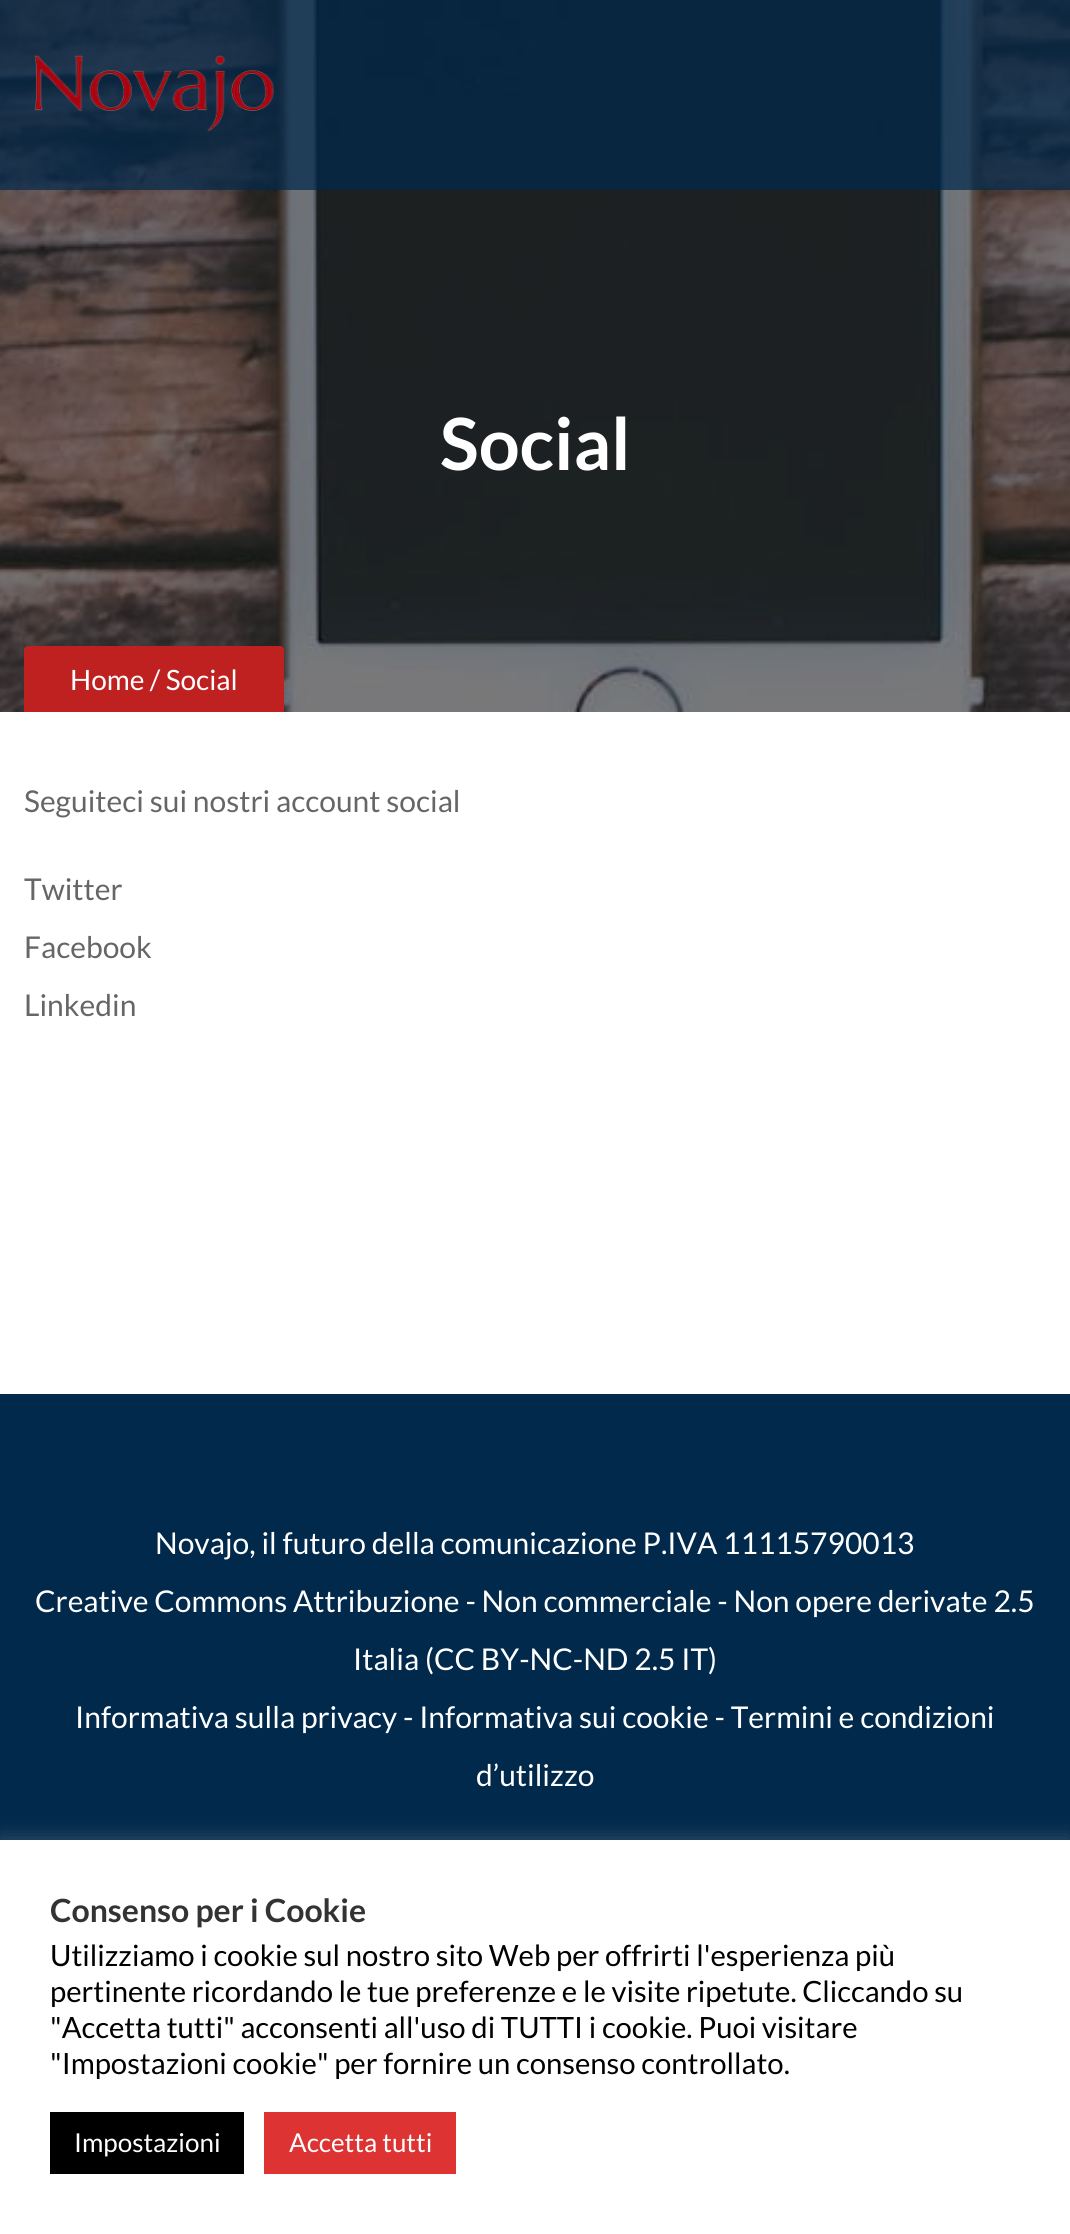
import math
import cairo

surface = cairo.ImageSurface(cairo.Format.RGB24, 1070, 2234)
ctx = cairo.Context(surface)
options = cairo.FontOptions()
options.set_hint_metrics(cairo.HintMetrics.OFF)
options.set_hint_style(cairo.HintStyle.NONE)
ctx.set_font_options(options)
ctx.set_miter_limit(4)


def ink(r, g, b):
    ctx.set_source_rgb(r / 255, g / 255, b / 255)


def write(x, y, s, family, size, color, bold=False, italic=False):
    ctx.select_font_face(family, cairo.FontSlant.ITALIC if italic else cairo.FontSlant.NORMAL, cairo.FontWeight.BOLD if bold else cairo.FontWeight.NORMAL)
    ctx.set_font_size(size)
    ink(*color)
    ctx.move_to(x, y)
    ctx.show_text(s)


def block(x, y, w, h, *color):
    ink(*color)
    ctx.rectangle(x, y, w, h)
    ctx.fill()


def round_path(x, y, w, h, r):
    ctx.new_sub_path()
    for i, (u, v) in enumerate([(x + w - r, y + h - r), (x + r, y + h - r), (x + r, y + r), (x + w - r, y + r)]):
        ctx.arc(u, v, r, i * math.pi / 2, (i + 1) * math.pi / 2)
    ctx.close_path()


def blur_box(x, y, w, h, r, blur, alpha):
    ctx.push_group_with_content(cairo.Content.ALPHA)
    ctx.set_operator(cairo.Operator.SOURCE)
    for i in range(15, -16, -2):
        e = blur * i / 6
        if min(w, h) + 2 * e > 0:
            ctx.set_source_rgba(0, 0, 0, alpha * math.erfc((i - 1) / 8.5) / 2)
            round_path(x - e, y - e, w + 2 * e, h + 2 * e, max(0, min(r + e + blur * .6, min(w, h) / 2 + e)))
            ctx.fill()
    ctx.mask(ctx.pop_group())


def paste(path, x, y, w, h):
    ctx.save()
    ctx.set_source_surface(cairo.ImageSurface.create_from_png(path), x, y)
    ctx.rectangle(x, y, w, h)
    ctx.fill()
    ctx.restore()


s1 = dict(family="Lato", size=72, color=(255, 255, 255), bold=True)
s2 = dict(family="Lato", size=28, color=(255, 255, 255))
s3 = dict(family="Lato", size=30, color=(102, 102, 102))
s4 = dict(family="Lato", size=30, color=(255, 255, 255))
s5 = dict(family="Lato", size=32, color=(51, 51, 51), bold=True)
s6 = dict(family="Lato", size=29.3, color=(0, 0, 0))
s7 = dict(family="Lato", size=26, color=(255, 255, 255))

ink(255, 255, 255)
ctx.paint()
paste("pic2.png", 0, 0, 1070, 712)
ctx.set_source_rgba(0.004, 0.161, 0.298, 0.7)
ctx.rectangle(0, 0, 1070, 190)
ctx.fill()
paste("pic1.png", 34, 55, 241, 77)
write(440, 470, "Social", **s1)
ink(191, 33, 33)
ctx.new_path()
ctx.move_to(28, 646)
ctx.line_to(280, 646)
ctx.curve_to(282, 646, 284, 648, 284, 650)
ctx.line_to(284, 712)
ctx.line_to(24, 712)
ctx.line_to(24, 650)
ctx.curve_to(24, 648, 26, 646, 28, 646)
ctx.close_path()
ctx.fill()
write(70, 690, "Home / Social", **s2)
write(24, 812, "Seguiteci sui nostri account social", **s3)
write(24, 900, "Twitter", **s3)
write(24, 958, "Facebook", **s3)
write(24, 1016, "Linkedin", **s3)
block(0, 1394, 1070, 446, 1, 41, 76)
write(155, 1554, "Novajo, il futuro della comunicazione P.IVA 11115790013", **s4)
write(35, 1612, "Creative Commons Attribuzione - Non commerciale - Non opere derivate 2.5", **s4)
write(353, 1670, "Italia (CC BY-NC-ND 2.5 IT)", **s4)
write(75, 1728, "Informativa sulla privacy - Informativa sui cookie - Termini e condizioni", **s4)
write(476, 1786, "d’utilizzo", **s4)
ink(172, 171, 171)
blur_box(0, 1838, 1070, 394, 0, 10, 0.3)
block(0, 1840, 1070, 394, 255, 255, 255)
write(50, 1922, "Consenso per i Cookie", **s5)
write(50, 1966, "Utilizziamo i cookie sul nostro sito Web per offrirti l'esperienza più", **s6)
write(50, 2002, "pertinente ricordando le tue preferenze e le visite ripetute. Cliccando su", **s6)
write(50, 2038, "\"Accetta tutti\" acconsenti all'uso di TUTTI i cookie. Puoi visitare", **s6)
write(50, 2074, "\"Impostazioni cookie\" per fornire un consenso controllato.", **s6)
block(50, 2112, 194, 62, 0, 0, 0)
write(74, 2152, "Impostazioni", **s7)
block(264, 2112, 192, 62, 221, 51, 51)
write(289, 2152, "Accetta tutti", **s7)
surface.write_to_png("screenshot.png")
